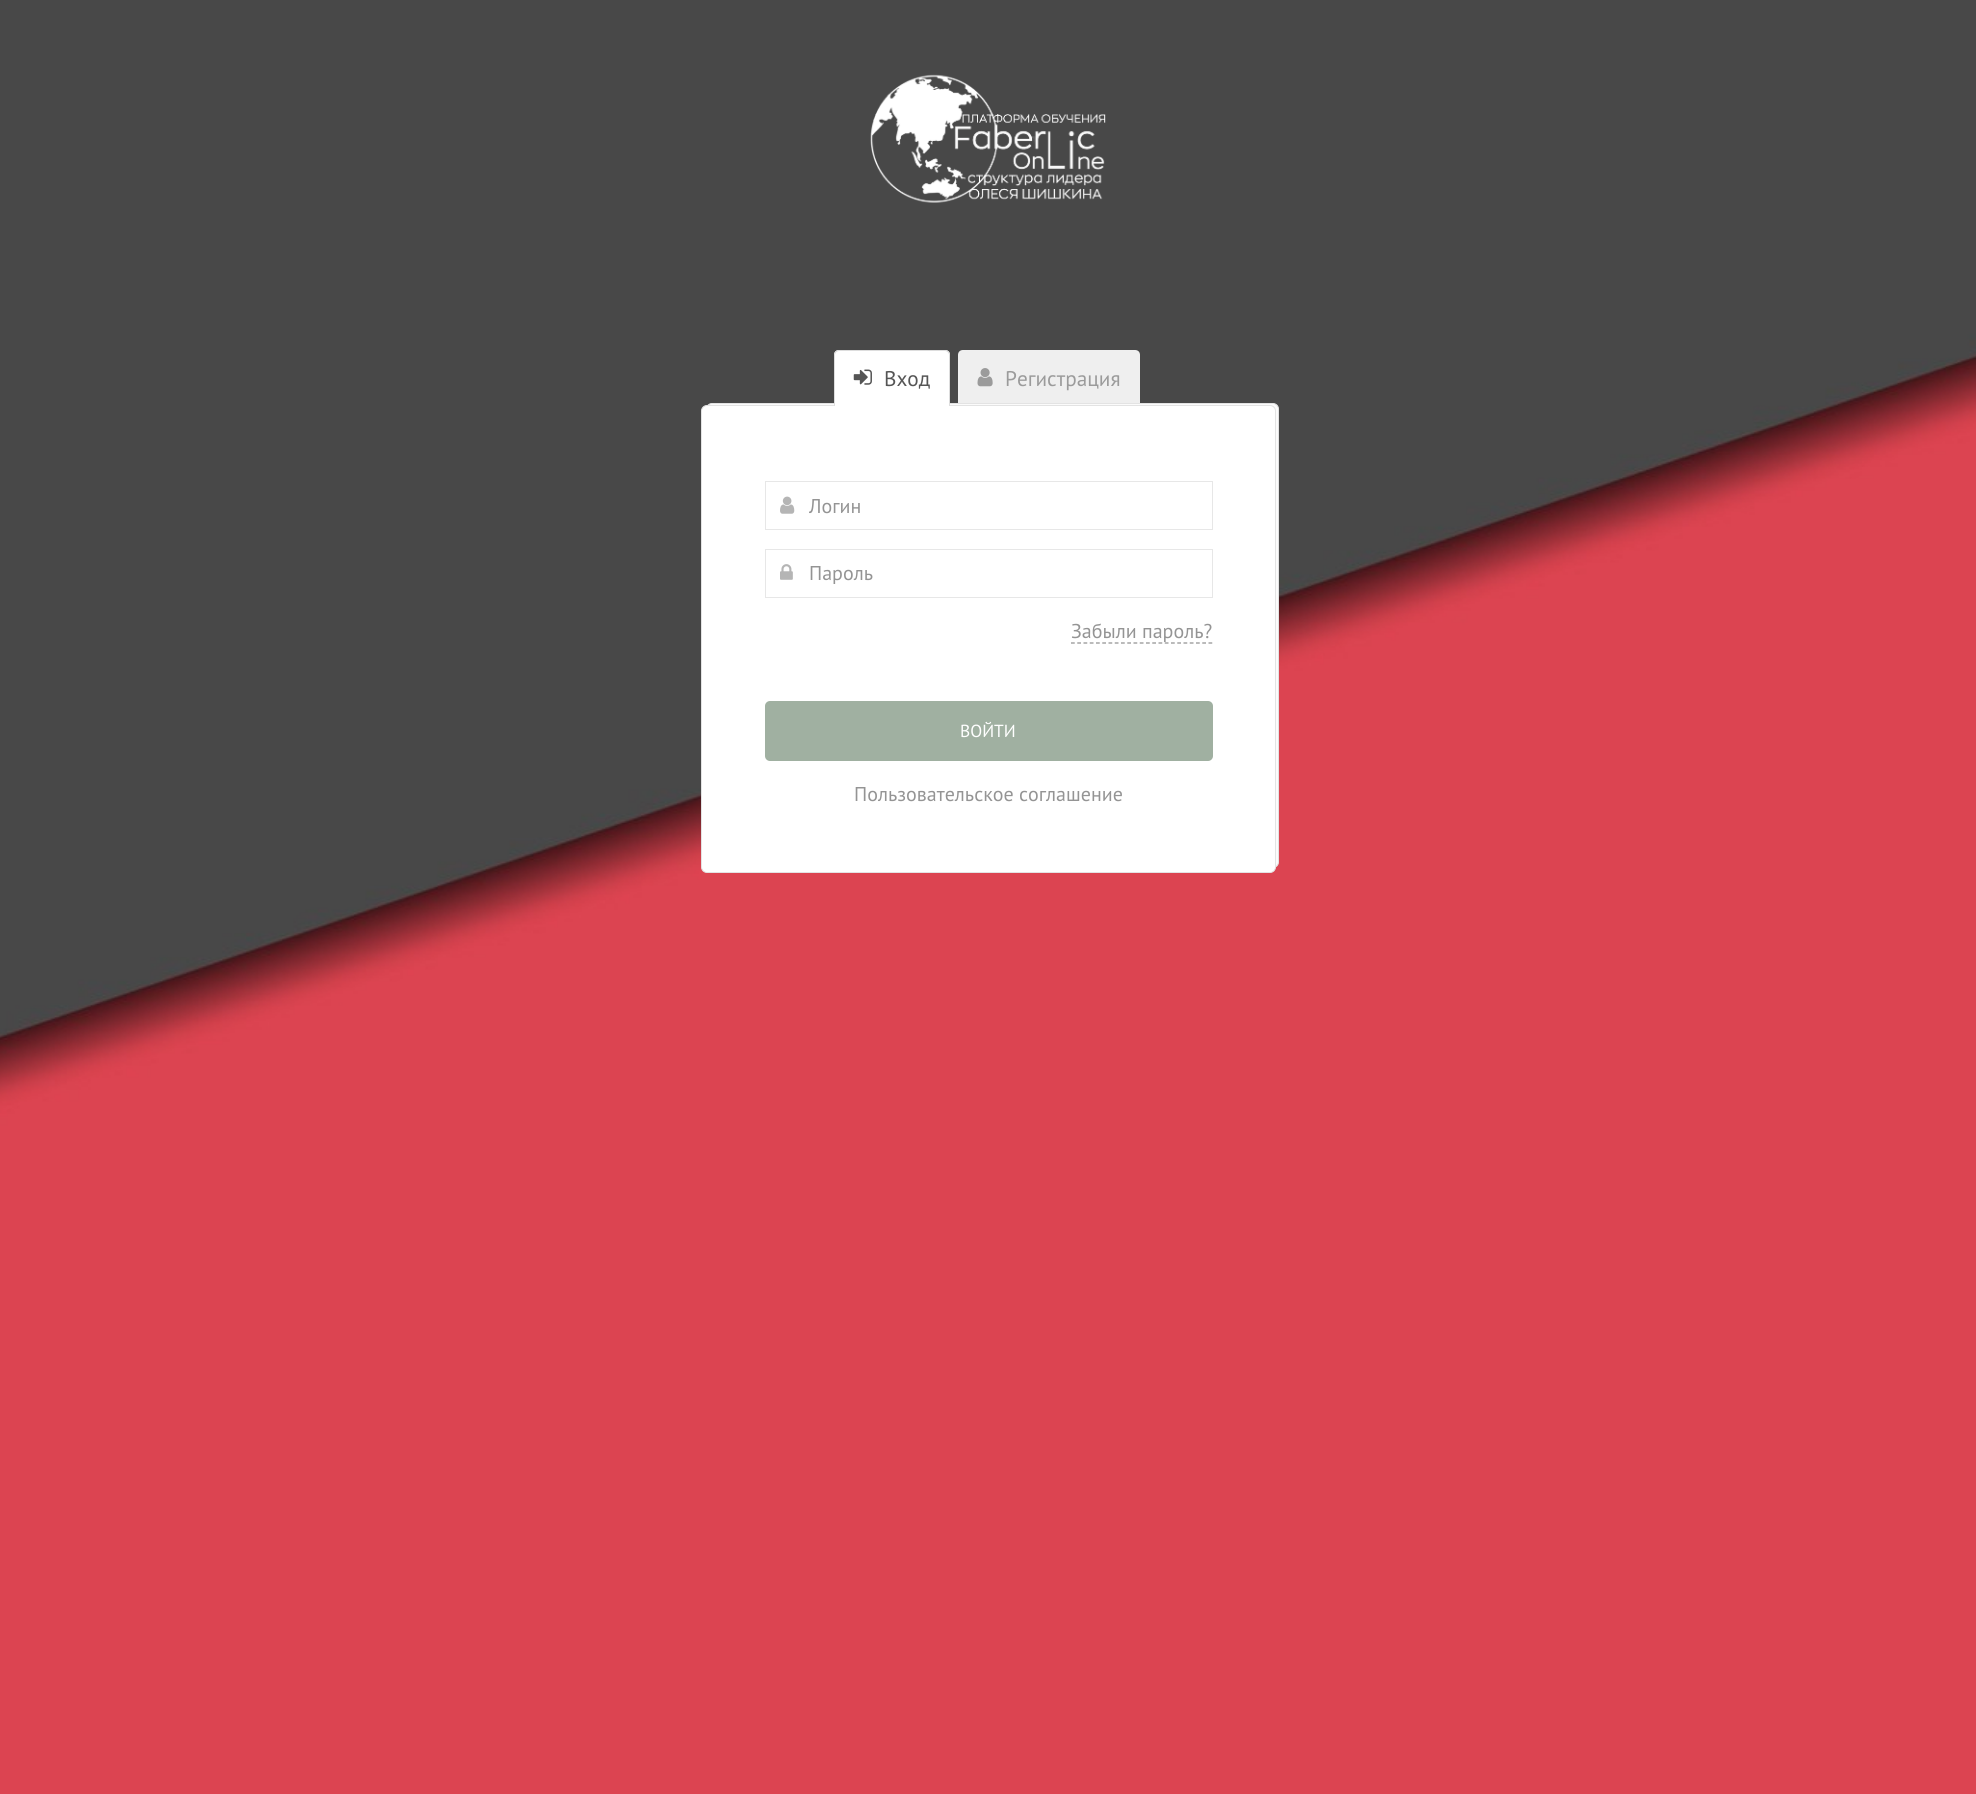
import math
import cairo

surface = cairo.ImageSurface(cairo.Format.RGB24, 1976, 1794)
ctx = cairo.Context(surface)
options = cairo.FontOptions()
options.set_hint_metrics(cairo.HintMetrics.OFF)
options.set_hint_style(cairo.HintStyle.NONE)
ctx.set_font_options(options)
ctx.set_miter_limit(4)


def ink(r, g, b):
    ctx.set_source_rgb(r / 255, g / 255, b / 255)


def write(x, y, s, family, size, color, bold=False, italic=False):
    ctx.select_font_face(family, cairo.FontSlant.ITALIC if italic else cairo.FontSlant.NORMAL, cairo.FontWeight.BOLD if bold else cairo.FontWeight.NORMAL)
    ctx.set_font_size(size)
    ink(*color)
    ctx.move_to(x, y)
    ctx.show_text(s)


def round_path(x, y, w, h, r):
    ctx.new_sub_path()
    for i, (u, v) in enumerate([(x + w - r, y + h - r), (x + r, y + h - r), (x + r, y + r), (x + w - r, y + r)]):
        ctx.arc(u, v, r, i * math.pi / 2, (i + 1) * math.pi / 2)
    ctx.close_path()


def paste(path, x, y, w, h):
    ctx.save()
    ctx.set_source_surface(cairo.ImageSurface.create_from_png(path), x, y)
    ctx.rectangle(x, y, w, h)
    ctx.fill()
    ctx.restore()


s1 = dict(family="PT Sans", size=21.25, color=(85, 85, 85))
s2 = dict(family="PT Sans", size=21.25, color=(155, 155, 155))
s3 = dict(family="PT Sans", size=20, color=(148, 148, 148))
s4 = dict(family="PT Sans", size=17.5, color=(255, 255, 255))

ink(255, 255, 255)
ctx.paint()
paste("pic1.png", 0, 0, 1976, 1794)
paste("pic2.png", 870, 74, 236, 129)
ink(251, 251, 251)
round_path(706.5, 403.5, 572, 464, 5.5)
ctx.fill_preserve()
ink(227, 227, 227)
ctx.set_line_width(1)
ctx.stroke()
ink(255, 255, 255)
round_path(701.5, 405.5, 574, 467, 5.5)
ctx.fill_preserve()
ink(227, 227, 227)
ctx.stroke()
ink(255, 255, 255)
ctx.new_path()
ctx.move_to(839, 350)
ctx.line_to(945, 350)
ctx.curve_to(948, 350, 950, 352, 950, 355)
ctx.line_to(950, 406)
ctx.line_to(834, 406)
ctx.line_to(834, 355)
ctx.curve_to(834, 352, 836, 350, 839, 350)
ctx.close_path()
ctx.fill()
ink(221, 221, 221)
ctx.set_fill_rule(cairo.FillRule.EVEN_ODD)
ctx.new_path()
ctx.move_to(839, 350)
ctx.line_to(945, 350)
ctx.curve_to(948, 350, 950, 352, 950, 355)
ctx.line_to(950, 406)
ctx.line_to(834, 406)
ctx.line_to(834, 355)
ctx.curve_to(834, 352, 836, 350, 839, 350)
ctx.close_path()
ctx.move_to(839, 351)
ctx.line_to(945, 351)
ctx.curve_to(947, 351, 949, 353, 949, 355)
ctx.line_to(949, 406)
ctx.line_to(835, 406)
ctx.line_to(835, 355)
ctx.curve_to(835, 353, 837, 351, 839, 351)
ctx.close_path()
ctx.fill()
paste("pic3.png", 853, 369, 19, 16)
write(884, 386, "Вход", **s1)
ink(239, 239, 239)
ctx.new_path()
ctx.move_to(963, 350)
ctx.line_to(1135, 350)
ctx.curve_to(1138, 350, 1140, 352, 1140, 355)
ctx.line_to(1140, 403)
ctx.line_to(958, 403)
ctx.line_to(958, 355)
ctx.curve_to(958, 352, 960, 350, 963, 350)
ctx.close_path()
ctx.fill()
paste("pic4.png", 977, 368, 16, 19)
write(1005, 386, "Регистрация", **s2)
ctx.rectangle(765.5, 481.5, 447, 48)
ink(231, 231, 231)
ctx.stroke()
paste("pic5.png", 780, 496, 15, 18)
write(809, 513, "Логин", **s3)
ctx.rectangle(765.5, 549.5, 447, 48)
ink(231, 231, 231)
ctx.stroke()
paste("pic6.png", 780, 564, 13, 16)
write(809, 580, "Пароль", **s3)
write(1071, 638, "Забыли пароль?", **s3)
ctx.new_path()
ctx.move_to(1071, 643)
ctx.line_to(1212.5, 643)
ink(143, 143, 143)
ctx.set_line_width(1.2)
ctx.set_dash([3.75, 2.5])
ctx.stroke()
ink(160, 176, 161)
round_path(765, 701, 448, 60, 5)
ctx.fill()
write(960, 737, "ВОЙТИ", **s4)
write(854, 801, "Пользовательское соглашение", **s3)
surface.write_to_png("screenshot.png")
